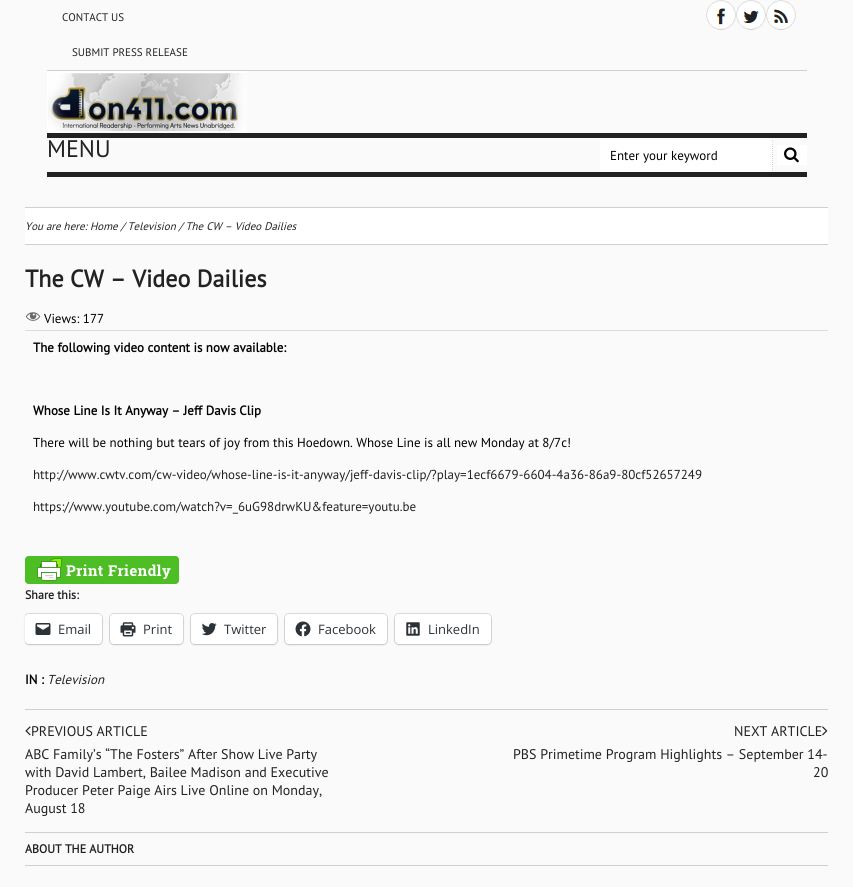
import math
import cairo

surface = cairo.ImageSurface(cairo.Format.RGB24, 853, 887)
ctx = cairo.Context(surface)
options = cairo.FontOptions()
options.set_hint_metrics(cairo.HintMetrics.OFF)
options.set_hint_style(cairo.HintStyle.NONE)
ctx.set_font_options(options)
ctx.set_miter_limit(4)


def ink(r, g, b):
    ctx.set_source_rgb(r / 255, g / 255, b / 255)


def write(x, y, s, family, size, color, bold=False, italic=False):
    ctx.select_font_face(family, cairo.FontSlant.ITALIC if italic else cairo.FontSlant.NORMAL, cairo.FontWeight.BOLD if bold else cairo.FontWeight.NORMAL)
    ctx.set_font_size(size)
    ink(*color)
    ctx.move_to(x, y)
    ctx.show_text(s)


def block(x, y, w, h, *color):
    ink(*color)
    ctx.rectangle(x, y, w, h)
    ctx.fill()


def round_path(x, y, w, h, r):
    ctx.new_sub_path()
    for i, (u, v) in enumerate([(x + w - r, y + h - r), (x + r, y + h - r), (x + r, y + r), (x + w - r, y + r)]):
        ctx.arc(u, v, r, i * math.pi / 2, (i + 1) * math.pi / 2)
    ctx.close_path()


def blur_box(x, y, w, h, r, blur, alpha):
    ctx.push_group_with_content(cairo.Content.ALPHA)
    ctx.set_operator(cairo.Operator.SOURCE)
    for i in range(15, -16, -2):
        e = blur * i / 6
        if min(w, h) + 2 * e > 0:
            ctx.set_source_rgba(0, 0, 0, alpha * math.erfc((i - 1) / 8.5) / 2)
            round_path(x - e, y - e, w + 2 * e, h + 2 * e, max(0, min(r + e + blur * .6, min(w, h) / 2 + e)))
            ctx.fill()
    ctx.mask(ctx.pop_group())


def paste(path, x, y, w, h):
    ctx.save()
    ctx.set_source_surface(cairo.ImageSurface.create_from_png(path), x, y)
    ctx.rectangle(x, y, w, h)
    ctx.fill()
    ctx.restore()


s1 = dict(family="PT Sans", size=11, color=(34, 34, 34))
s2 = dict(family="PT Sans", size=24, color=(34, 34, 34))
s3 = dict(family="PT Sans", size=13, color=(0, 0, 0))
s4 = dict(family="PT Sans", size=11, color=(34, 34, 34), italic=True)
s5 = dict(family="PT Sans", size=24, color=(34, 34, 34), bold=True)
s6 = dict(family="PT Sans", size=13, color=(0, 0, 0), bold=True)
s7 = dict(family="PT Sans", size=13, color=(34, 34, 34))
s8 = dict(family="PT Sans", size=12, color=(34, 34, 34), bold=True)
s9 = dict(family="Open Sans", size=13, color=(44, 51, 56))
s10 = dict(family="PT Sans", size=13, color=(34, 34, 34), italic=True)
s11 = dict(family="PT Sans", size=14, color=(34, 34, 34))

ink(250, 250, 250)
ctx.paint()
block(47, 70, 760, 1, 208, 208, 208)
write(62, 21, "CONTACT US", **s1)
write(72, 56, "SUBMIT PRESS RELEASE", **s1)
paste("pic1.png", 706, 0, 30, 30)
paste("pic2.png", 736, 0, 30, 30)
paste("pic3.png", 766, 0, 30, 30)
paste("pic4.png", 47, 71, 200, 61)
block(47, 133, 760, 5, 34, 34, 34)
block(47, 172, 760, 5, 34, 34, 34)
write(47, 157, "MENU", **s2)
block(600, 140, 173, 32, 255, 255, 255)
ctx.new_path()
ctx.move_to(772.5, 140)
ctx.line_to(772.5, 172)
ink(215, 215, 215)
ctx.set_line_width(1)
ctx.set_dash([1, 1])
ctx.stroke()
write(610, 160, "Enter your keyword", **s3)
block(777, 145, 30, 20, 255, 255, 255)
paste("pic5.png", 784, 147, 15, 16)
block(25, 208, 803, 36, 255, 255, 255)
block(25, 207, 803, 1, 208, 208, 208)
block(25, 244, 803, 1, 208, 208, 208)
write(25, 230, "You are here: Home / Television / The CW – Video Dailies", **s4)
write(25, 287, "The CW – Video Dailies", **s5)
paste("pic6.png", 25, 312, 16, 9)
write(44, 323, "Views: 177", **s3)
block(25, 330, 803, 1, 221, 221, 221)
write(33, 352, "The following video content is now available:", **s6)
write(33, 415, "Whose Line Is It Anyway – Jeff Davis Clip", **s6)
write(33, 447, "There will be nothing but tears of joy from this Hoedown. Whose Line is all new Monday at 8/7c!", **s3)
write(33, 479, "http://www.cwtv.com/cw-video/whose-line-is-it-anyway/jeff-davis-clip/?play=1ecf6679-6604-4a36-86a9-80cf52657249", **s7)
write(33, 511, "https://www.youtube.com/watch?v=_6uG98drwKU&feature=youtu.be", **s7)
paste("pic7.png", 25, 556, 154, 28)
write(25, 599, "Share this:", **s8)
ctx.save()
ctx.rectangle(25, 265, 803, 557)
ctx.clip()
round_path(24.5, 613.5, 78, 31, 4.5)
ink(220, 220, 220)
ctx.set_dash([])
ctx.stroke()
ctx.restore()
ink(0, 0, 0)
blur_box(25, 615, 77, 30, 4, 1, 0.12)
ink(255, 255, 255)
round_path(25, 614, 77, 30, 4)
ctx.fill()
paste("pic8.png", 35, 623, 16, 12)
write(58, 634, "Email", **s9)
round_path(109.5, 613.5, 74, 31, 4.5)
ink(220, 220, 220)
ctx.set_dash([])
ctx.stroke()
ink(0, 0, 0)
blur_box(110, 615, 73, 30, 4, 1, 0.12)
ink(255, 255, 255)
round_path(110, 614, 73, 30, 4)
ctx.fill()
paste("pic9.png", 120, 622, 16, 15)
write(143, 634, "Print", **s9)
round_path(190.5, 613.5, 87, 31, 4.5)
ink(220, 220, 220)
ctx.stroke()
ink(0, 0, 0)
blur_box(191, 615, 86, 30, 4, 1, 0.12)
ink(255, 255, 255)
round_path(191, 614, 86, 30, 4)
ctx.fill()
paste("pic10.png", 201, 623, 16, 13)
write(224, 634, "Twitter", **s9)
round_path(284.5, 613.5, 103, 31, 4.5)
ink(220, 220, 220)
ctx.stroke()
ink(0, 0, 0)
blur_box(285, 615, 102, 30, 4, 1, 0.12)
ink(255, 255, 255)
round_path(285, 614, 102, 30, 4)
ctx.fill()
paste("pic11.png", 295, 621, 16, 16)
write(318, 634, "Facebook", **s9)
round_path(394.5, 613.5, 97, 31, 4.5)
ink(220, 220, 220)
ctx.stroke()
ink(0, 0, 0)
blur_box(395, 615, 96, 30, 4, 1, 0.12)
ink(255, 255, 255)
round_path(395, 614, 96, 30, 4)
ctx.fill()
paste("pic12.png", 406, 622, 14, 14)
write(428, 634, "LinkedIn", **s9)
write(25, 684, "IN :", **s6)
write(47, 684, "Television", **s10)
block(25, 709, 803, 1, 208, 208, 208)
paste("pic13.png", 25, 726, 6, 10)
write(31, 736, "PREVIOUS ARTICLE", **s11)
write(25, 759, "ABC Family’s “The Fosters” After Show Live Party", **s11)
write(25, 777, "with David Lambert, Bailee Madison and Executive", **s11)
write(25, 795, "Producer Peter Paige Airs Live Online on Monday,", **s11)
write(25, 813, "August 18", **s11)
write(734, 736, "NEXT ARTICLE", **s11)
paste("pic14.png", 822, 726, 6, 10)
write(513, 759, "PBS Primetime Program Highlights – September 14-", **s11)
write(813, 777, "20", **s11)
block(25, 832, 803, 1, 208, 208, 208)
block(25, 865, 803, 1, 208, 208, 208)
write(25, 853, "ABOUT THE AUTHOR", **s8)
surface.write_to_png("screenshot.png")
